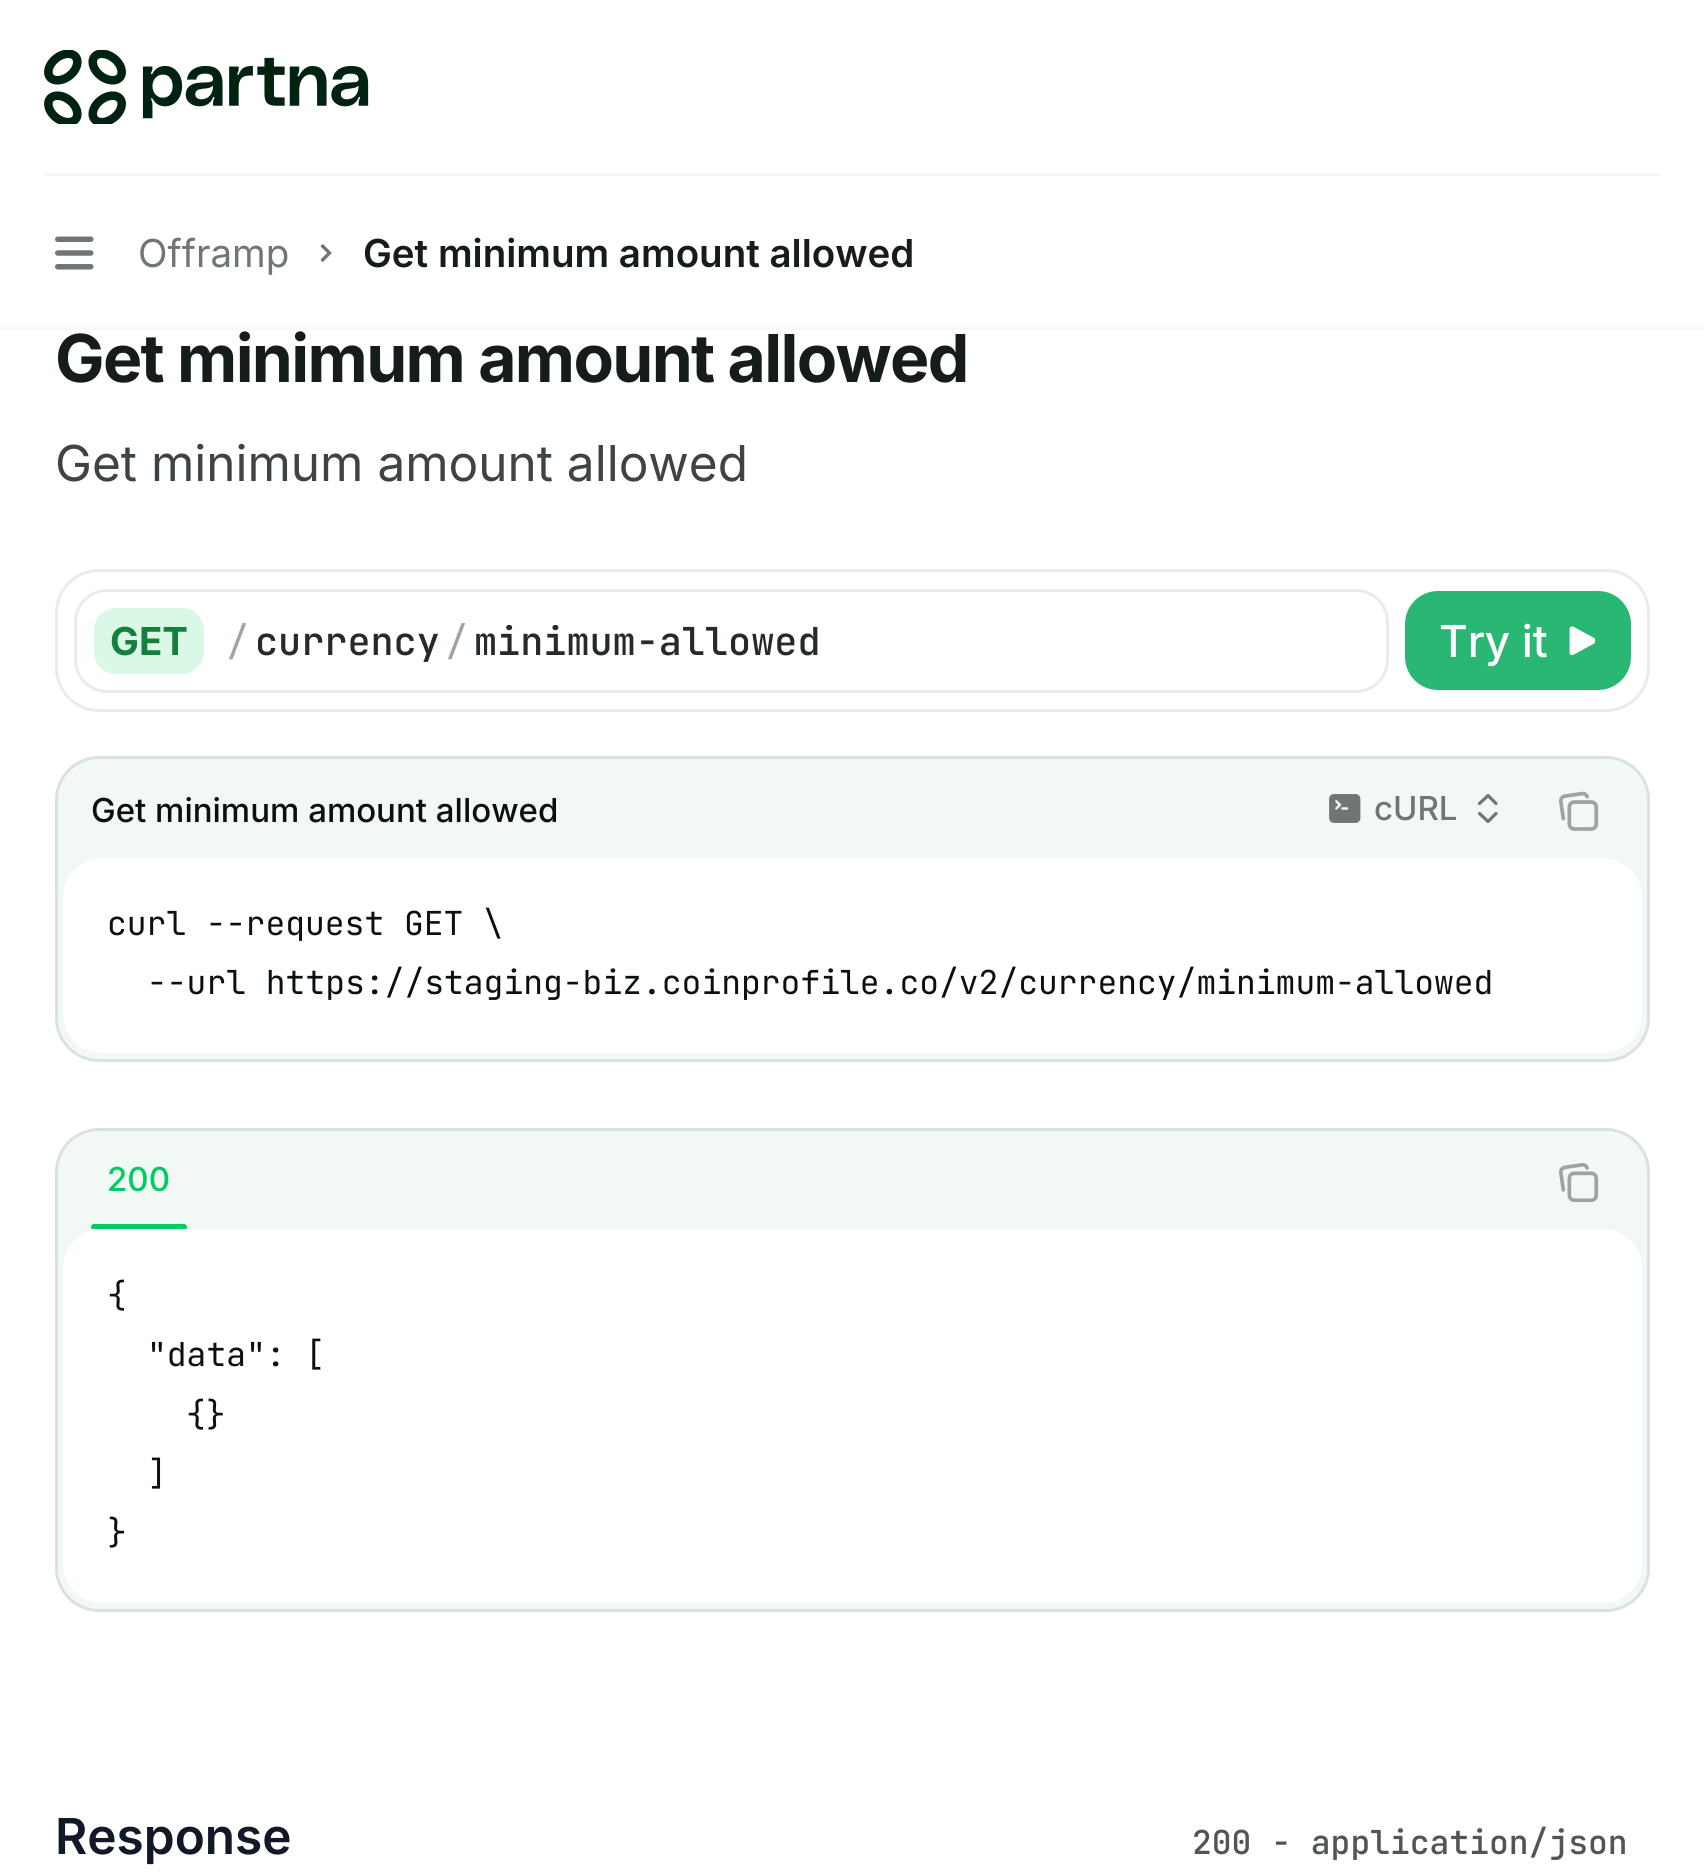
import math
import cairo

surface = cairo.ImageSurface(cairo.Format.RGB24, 1704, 1873)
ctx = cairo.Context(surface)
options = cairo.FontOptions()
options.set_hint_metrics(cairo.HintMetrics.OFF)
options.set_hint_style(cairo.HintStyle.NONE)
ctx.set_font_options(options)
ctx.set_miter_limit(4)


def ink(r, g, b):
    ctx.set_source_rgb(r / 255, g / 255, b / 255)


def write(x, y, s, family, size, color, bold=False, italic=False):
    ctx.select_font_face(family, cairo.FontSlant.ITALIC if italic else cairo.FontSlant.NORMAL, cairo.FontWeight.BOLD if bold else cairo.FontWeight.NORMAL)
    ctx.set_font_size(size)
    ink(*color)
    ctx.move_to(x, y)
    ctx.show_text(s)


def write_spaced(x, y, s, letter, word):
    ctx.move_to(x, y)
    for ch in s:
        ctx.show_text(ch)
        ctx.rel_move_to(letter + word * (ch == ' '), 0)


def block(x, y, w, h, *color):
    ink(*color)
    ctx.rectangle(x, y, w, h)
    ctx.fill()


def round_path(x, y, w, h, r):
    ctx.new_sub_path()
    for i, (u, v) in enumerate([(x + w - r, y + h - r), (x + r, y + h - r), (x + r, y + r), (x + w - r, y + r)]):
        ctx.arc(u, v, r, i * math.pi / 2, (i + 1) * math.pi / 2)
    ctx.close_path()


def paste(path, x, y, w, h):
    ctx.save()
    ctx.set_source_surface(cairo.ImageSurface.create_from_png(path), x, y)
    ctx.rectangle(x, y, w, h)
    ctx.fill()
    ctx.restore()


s1 = dict(family="Inter", size=38.5, color=(111, 118, 115))
s2 = dict(family="Inter SemiBold", size=38.5, color=(22, 29, 25))
s3 = dict(family="Inter", size=49.5, color=(62, 68, 65))
s4 = dict(family="Inter", size=38.5, color=(21, 128, 61), bold=True)
s5 = dict(family="JetBrains Mono", size=38.5, color=(158, 164, 161))
s6 = dict(family="JetBrains Mono Medium", size=38.5, color=(37, 43, 40))
s7 = dict(family="Inter Medium", size=44, color=(255, 255, 255))
s8 = dict(family="Inter Medium", size=33, color=(10, 16, 13))
s9 = dict(family="Inter Medium", size=33, color=(111, 118, 115))
s10 = dict(family="JetBrains Mono", size=33, color=(10, 16, 13))
s11 = dict(family="Inter Medium", size=33, color=(0, 204, 102))
s12 = dict(family="Inter SemiBold", size=49.5, color=(17, 24, 39))
s13 = dict(family="JetBrains Mono Medium", size=33, color=(79, 86, 83))

ink(255, 255, 255)
ctx.paint()
block(44, 173, 1617, 3, 248, 248, 248)
paste("pic1.png", 44, 50, 325, 74)
paste("pic2.png", 55, 236, 39, 34)
write(138, 267, "Offramp", **s1)
ctx.new_path()
ctx.move_to(322.5, 246)
ctx.line_to(329.5, 253)
ctx.line_to(322.5, 260)
ctx.set_line_width(3.4)
ctx.set_line_cap(cairo.LineCap.ROUND)
ctx.stroke()
write(363, 267, "Get minimum amount allowed", **s2)
block(0, 327, 1704, 3, 248, 248, 248)
ctx.select_font_face("Inter", cairo.FontSlant.NORMAL, cairo.FontWeight.BOLD)
ctx.set_font_size(66)
ink(22, 29, 25)
write_spaced(55, 382, "Get minimum amount allowed", -1.65, 0)
write(55, 481, "Get minimum amount allowed", **s3)
round_path(56.5, 570.5, 1592, 140, 42.5)
ink(232, 236, 234)
ctx.set_line_width(3)
ctx.set_line_cap(cairo.LineCap.BUTT)
ctx.stroke()
round_path(75.5, 590.5, 1312, 101, 31.5)
ctx.stroke()
ink(219, 248, 230)
round_path(94, 608, 110, 66, 22)
ctx.fill()
write(110, 655, "GET", **s4)
write(226, 655, "/", **s5)
write(255, 655, "currency", **s6)
write(445, 655, "/", **s5)
write(474, 655, "minimum-allowed", **s6)
ink(42, 182, 115)
round_path(1405, 591, 226, 99, 33)
ctx.fill()
write(1439, 657, "Try it", **s7)
paste("pic3.png", 1569, 626, 26, 30)
ink(242, 249, 245)
round_path(55, 756, 1595, 306, 44)
ctx.fill()
round_path(56.5, 757.5, 1592, 303, 42.5)
ctx.set_source_rgba(0.039, 0.063, 0.051, 0.1)
ctx.stroke()
write(91, 822, "Get minimum amount allowed", **s8)
paste("pic4.png", 1329, 794, 32, 29)
write(1374, 820, "cURL", **s9)
ctx.new_path()
ctx.move_to(1479.5, 813.5)
ctx.line_to(1488, 821.5)
ctx.line_to(1496, 813.5)
ctx.move_to(1479.5, 803.5)
ctx.line_to(1488, 795.5)
ctx.line_to(1496, 803.5)
ctx.set_line_width(3.2)
ctx.set_line_cap(cairo.LineCap.ROUND)
ctx.set_line_join(cairo.LineJoin.ROUND)
ctx.stroke()
paste("pic5.png", 1559, 791, 40, 40)
ink(255, 255, 255)
round_path(63, 858, 1579, 195, 39)
ctx.fill()
write(107, 935, "curl --request GET \\", **s10)
write(147, 994, "--url https://staging-biz.coinprofile.co/v2/currency/minimum-allowed", **s10)
ink(242, 249, 245)
round_path(55, 1128, 1595, 484, 44)
ctx.fill()
round_path(56.5, 1129.5, 1592, 481, 42.5)
ctx.set_source_rgba(0.039, 0.063, 0.051, 0.1)
ctx.set_line_width(3)
ctx.set_line_cap(cairo.LineCap.BUTT)
ctx.set_line_join(cairo.LineJoin.MITER)
ctx.stroke()
write(107, 1191, "200", **s11)
ctx.save()
ctx.new_path()
ctx.move_to(96, 1136)
ctx.line_to(1521, 1136)
ctx.line_to(1521, 1229)
ctx.line_to(63, 1229)
ctx.line_to(63, 1169)
ctx.curve_to(63, 1151, 78, 1136, 96, 1136)
ctx.close_path()
ctx.clip()
round_path(91, 1224, 96, 6, 3)
ctx.fill()
ctx.restore()
paste("pic6.png", 1559, 1163, 40, 40)
ink(255, 255, 255)
round_path(63, 1229, 1579, 374, 39)
ctx.fill()
write(107, 1307, "{", **s10)
write(147, 1366, "\"data\": [", **s10)
write(186, 1426, "{}", **s10)
write(147, 1485, "]", **s10)
write(107, 1544, "}", **s10)
write(55, 1854, "Response", **s12)
write(1192, 1854, "200 - application/json", **s13)
surface.write_to_png("screenshot.png")
